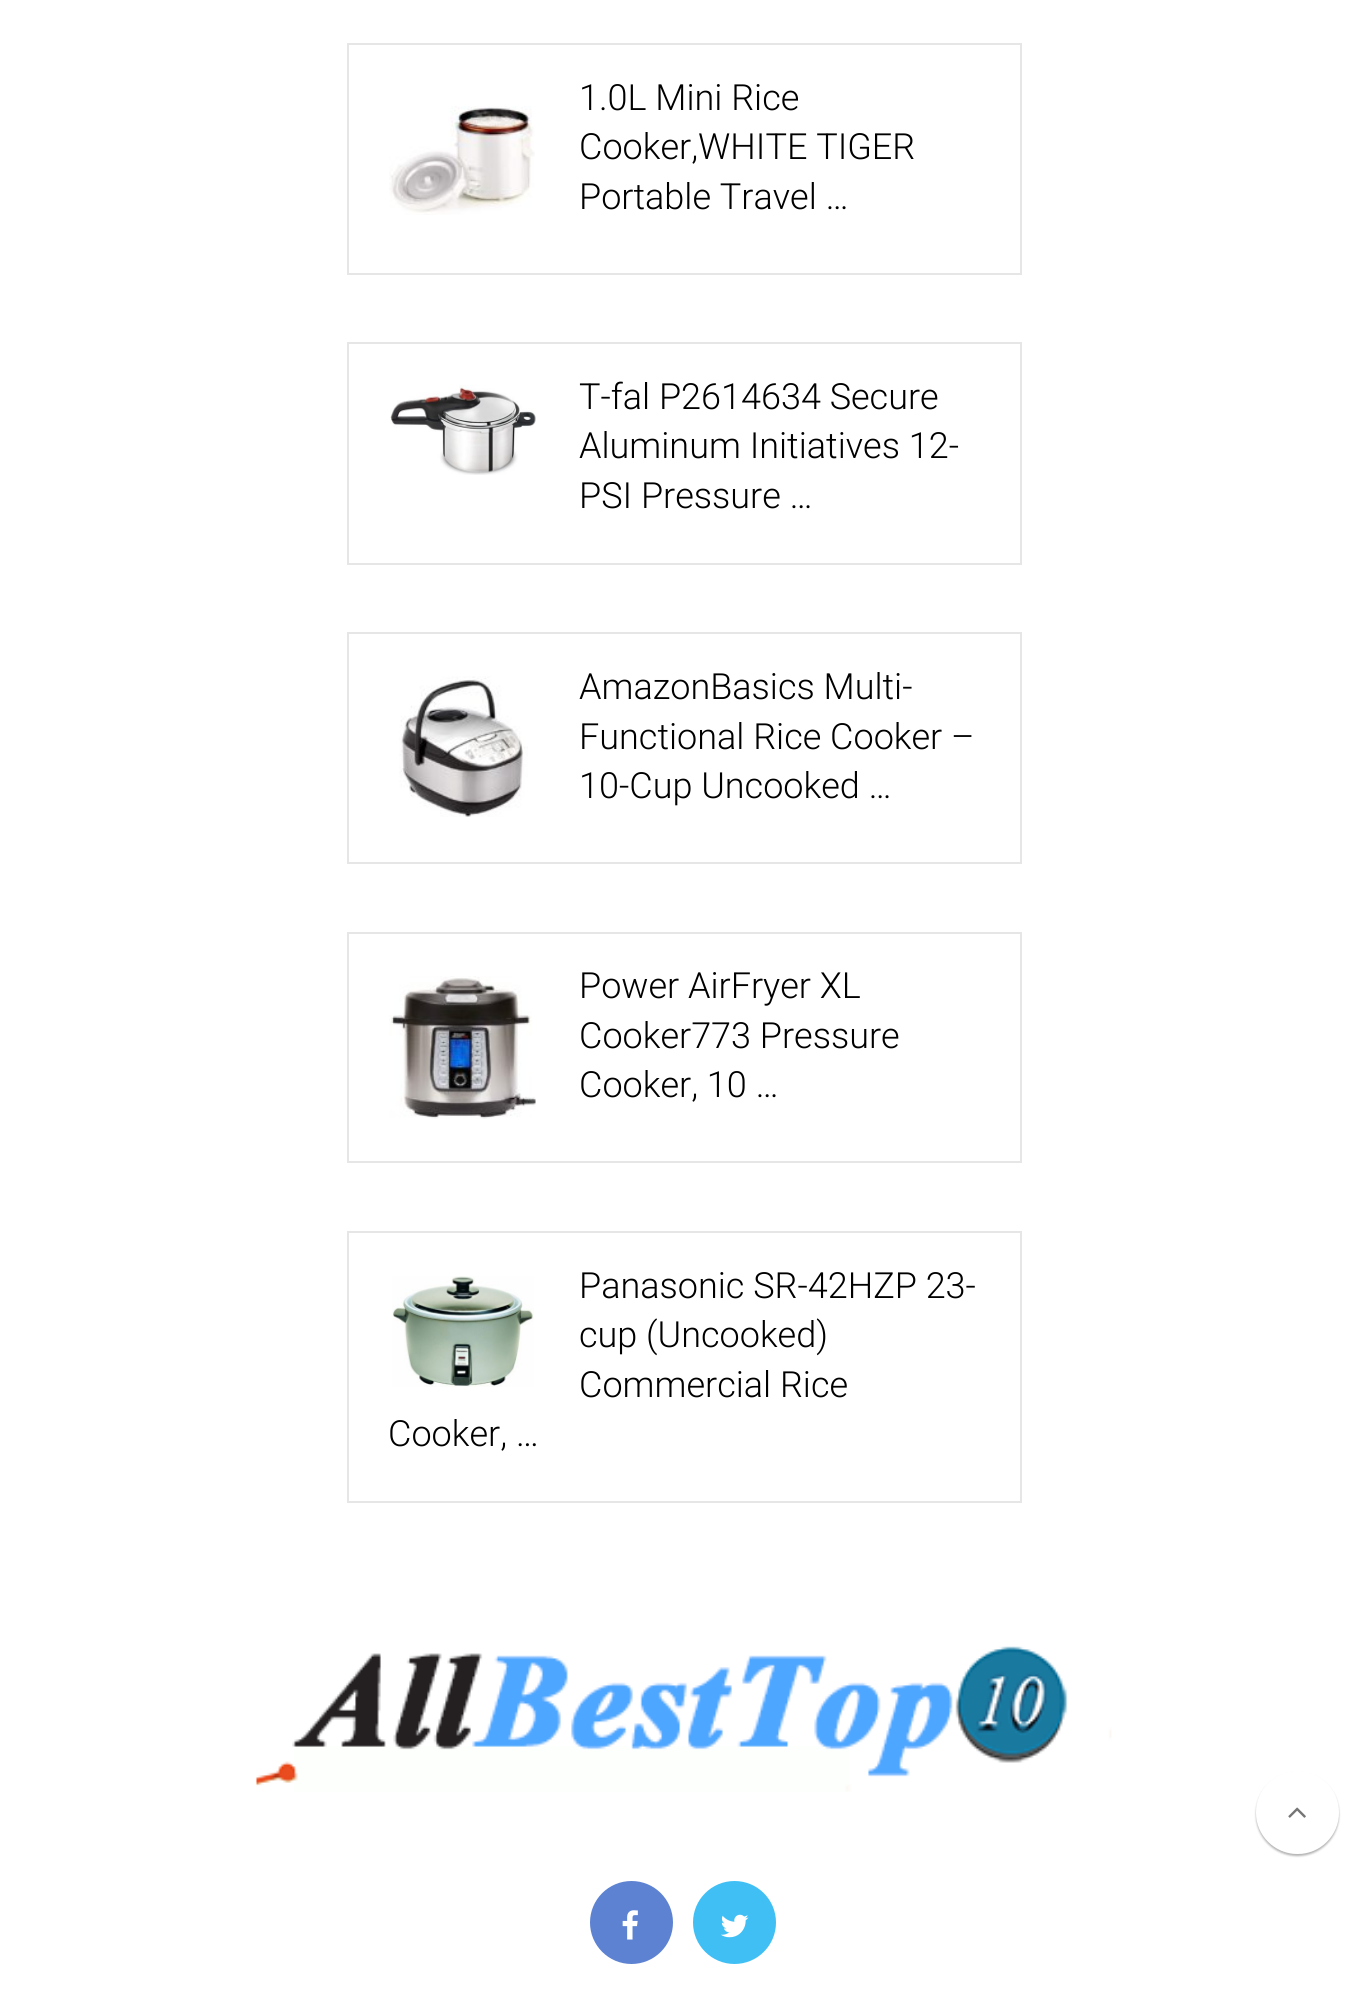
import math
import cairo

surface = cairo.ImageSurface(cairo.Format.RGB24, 1364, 2010)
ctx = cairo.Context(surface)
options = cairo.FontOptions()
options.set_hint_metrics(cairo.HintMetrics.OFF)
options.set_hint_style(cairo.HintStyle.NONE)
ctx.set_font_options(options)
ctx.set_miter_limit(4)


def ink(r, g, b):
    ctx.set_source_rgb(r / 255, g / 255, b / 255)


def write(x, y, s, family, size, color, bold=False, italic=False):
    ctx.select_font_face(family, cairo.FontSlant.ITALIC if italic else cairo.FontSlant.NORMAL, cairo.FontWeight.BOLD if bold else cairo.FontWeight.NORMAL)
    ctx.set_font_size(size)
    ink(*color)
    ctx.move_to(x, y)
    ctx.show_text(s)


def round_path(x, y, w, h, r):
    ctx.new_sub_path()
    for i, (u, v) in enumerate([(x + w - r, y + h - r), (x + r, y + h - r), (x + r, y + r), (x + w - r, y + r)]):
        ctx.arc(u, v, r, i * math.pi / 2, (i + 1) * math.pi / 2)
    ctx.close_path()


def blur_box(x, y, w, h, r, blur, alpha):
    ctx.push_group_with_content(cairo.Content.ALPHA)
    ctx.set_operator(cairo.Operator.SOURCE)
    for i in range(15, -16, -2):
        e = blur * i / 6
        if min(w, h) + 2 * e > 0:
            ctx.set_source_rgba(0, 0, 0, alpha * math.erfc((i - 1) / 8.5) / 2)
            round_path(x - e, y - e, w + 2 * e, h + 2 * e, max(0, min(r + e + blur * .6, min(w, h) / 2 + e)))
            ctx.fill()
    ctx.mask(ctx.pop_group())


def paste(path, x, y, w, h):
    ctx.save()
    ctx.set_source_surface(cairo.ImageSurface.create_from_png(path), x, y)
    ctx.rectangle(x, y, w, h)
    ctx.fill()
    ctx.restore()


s1 = dict(family="Roboto Light", size=36, color=(0, 0, 0))

ink(255, 255, 255)
ctx.paint()
ctx.rectangle(348, 44, 673, 230)
ink(230, 230, 230)
ctx.stroke()
paste("pic1.png", 389, 106, 146, 109)
write(579, 110, "1.0L Mini Rice", **s1)
write(579, 159, "Cooker,WHITE TIGER", **s1)
write(579, 209, "Portable Travel …", **s1)
ctx.rectangle(348, 343, 673, 221)
ink(230, 230, 230)
ctx.stroke()
paste("pic2.png", 390, 385, 146, 90)
write(579, 409, "T-fal P2614634 Secure", **s1)
write(579, 458, "Aluminum Initiatives 12-", **s1)
write(579, 508, "PSI Pressure …", **s1)
ctx.rectangle(348, 633, 673, 230)
ink(230, 230, 230)
ctx.stroke()
paste("pic3.png", 399, 676, 129, 141)
write(579, 699, "AmazonBasics Multi-", **s1)
write(579, 749, "Functional Rice Cooker –", **s1)
write(579, 798, "10-Cup Uncooked …", **s1)
ctx.rectangle(348, 933, 673, 229)
ink(230, 230, 230)
ctx.stroke()
paste("pic4.png", 389, 976, 147, 143)
write(579, 998, "Power AirFryer XL", **s1)
write(579, 1048, "Cooker773 Pressure", **s1)
write(579, 1097, "Cooker, 10 …", **s1)
ctx.rectangle(348, 1232, 673, 270)
ink(230, 230, 230)
ctx.stroke()
write(579, 1298, "Panasonic SR-42HZP 23-", **s1)
write(579, 1347, "cup (Uncooked)", **s1)
write(579, 1397, "Commercial Rice", **s1)
write(388, 1446, "Cooker, …", **s1)
paste("pic5.png", 392, 1276, 142, 111)
paste("pic6.png", 256, 1646, 856, 146)
ink(0, 0, 0)
blur_box(1256, 1773, 83, 83, 41.5, 1, 0.3)
ink(255, 255, 255)
ctx.arc(1297.5, 1812.5, 41.5, 0, 2 * math.pi)
ctx.fill()
ctx.arc(1297.5, 1812.5, 40.5, 0, 2 * math.pi)
ctx.set_source_rgba(1, 1, 1, 0.3)
ctx.stroke()
paste("pic7.png", 1288, 1807, 18, 11)
ink(93, 130, 209)
ctx.arc(631.5, 1922.5, 41.5, 0, 2 * math.pi)
ctx.fill()
paste("pic8.png", 622, 1910, 16, 30)
ink(64, 191, 245)
ctx.arc(734.5, 1922.5, 41.5, 0, 2 * math.pi)
ctx.fill()
paste("pic9.png", 721, 1914, 28, 24)
surface.write_to_png("screenshot.png")
